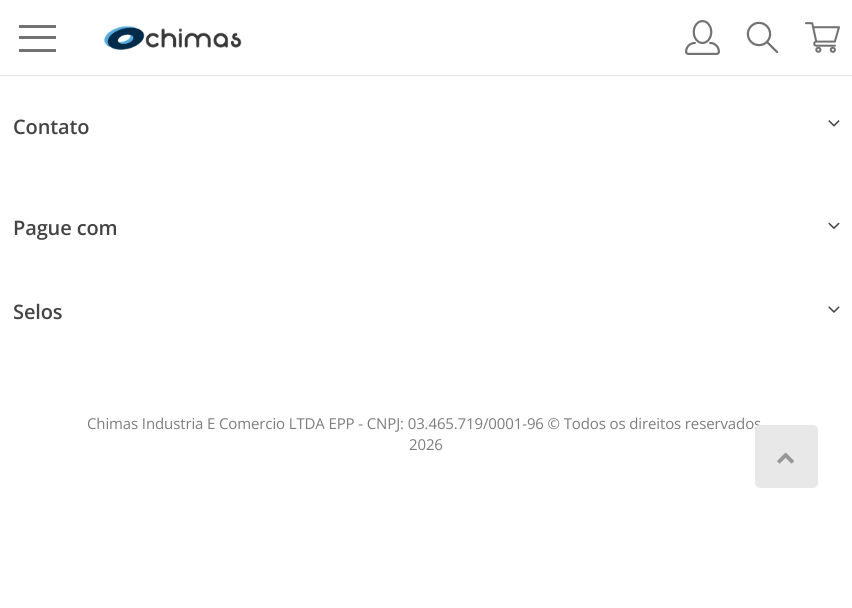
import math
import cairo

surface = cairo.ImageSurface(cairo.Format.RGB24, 852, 608)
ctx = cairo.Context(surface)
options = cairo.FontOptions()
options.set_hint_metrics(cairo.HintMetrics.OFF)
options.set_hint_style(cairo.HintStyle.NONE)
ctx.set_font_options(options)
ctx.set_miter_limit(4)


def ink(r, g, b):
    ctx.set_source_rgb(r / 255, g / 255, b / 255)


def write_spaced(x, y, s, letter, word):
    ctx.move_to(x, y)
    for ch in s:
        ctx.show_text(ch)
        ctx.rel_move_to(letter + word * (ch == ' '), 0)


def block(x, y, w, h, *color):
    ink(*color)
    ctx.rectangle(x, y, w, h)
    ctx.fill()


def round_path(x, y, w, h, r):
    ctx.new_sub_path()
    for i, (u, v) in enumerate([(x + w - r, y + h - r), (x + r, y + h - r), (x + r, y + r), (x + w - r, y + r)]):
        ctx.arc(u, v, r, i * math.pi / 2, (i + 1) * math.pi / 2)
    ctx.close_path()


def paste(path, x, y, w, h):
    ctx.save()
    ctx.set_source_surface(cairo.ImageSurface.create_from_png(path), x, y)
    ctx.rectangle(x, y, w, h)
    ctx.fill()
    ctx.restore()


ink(255, 255, 255)
ctx.paint()
block(0, 75, 852, 1, 227, 227, 227)
block(19, 25, 37, 3, 114, 114, 114)
block(19, 36, 37, 3, 114, 114, 114)
block(19, 49, 37, 3, 114, 114, 114)
paste("pic1.png", 104, 25, 138, 25)
paste("pic2.png", 685, 20, 35, 35)
paste("pic3.png", 746, 21, 33, 33)
paste("pic4.png", 805, 22, 35, 31)
ctx.select_font_face("Open Sans SemiBold")
ctx.set_font_size(20)
ink(68, 68, 68)
write_spaced(13, 134, "Contato", -0.12, 0)
paste("pic5.png", 828, 120, 12, 7)
write_spaced(13, 235, "Pague com", -0.12, 0)
paste("pic6.png", 828, 222, 12, 8)
write_spaced(13, 319, "Selos", -0.12, 0)
paste("pic7.png", 828, 306, 12, 7)
ctx.select_font_face("Open Sans")
ctx.set_font_size(15)
ink(125, 125, 125)
write_spaced(87, 429, "Chimas Industria E Comercio LTDA EPP - CNPJ: 03.465.719/0001-96 © Todos os direitos reservados", -0.12, 0)
write_spaced(409, 450, "2026", -0.12, 0)
ink(232, 232, 232)
round_path(755, 425, 63, 63, 5)
ctx.fill()
paste("pic8.png", 777, 452, 17, 12)
surface.write_to_png("screenshot.png")
